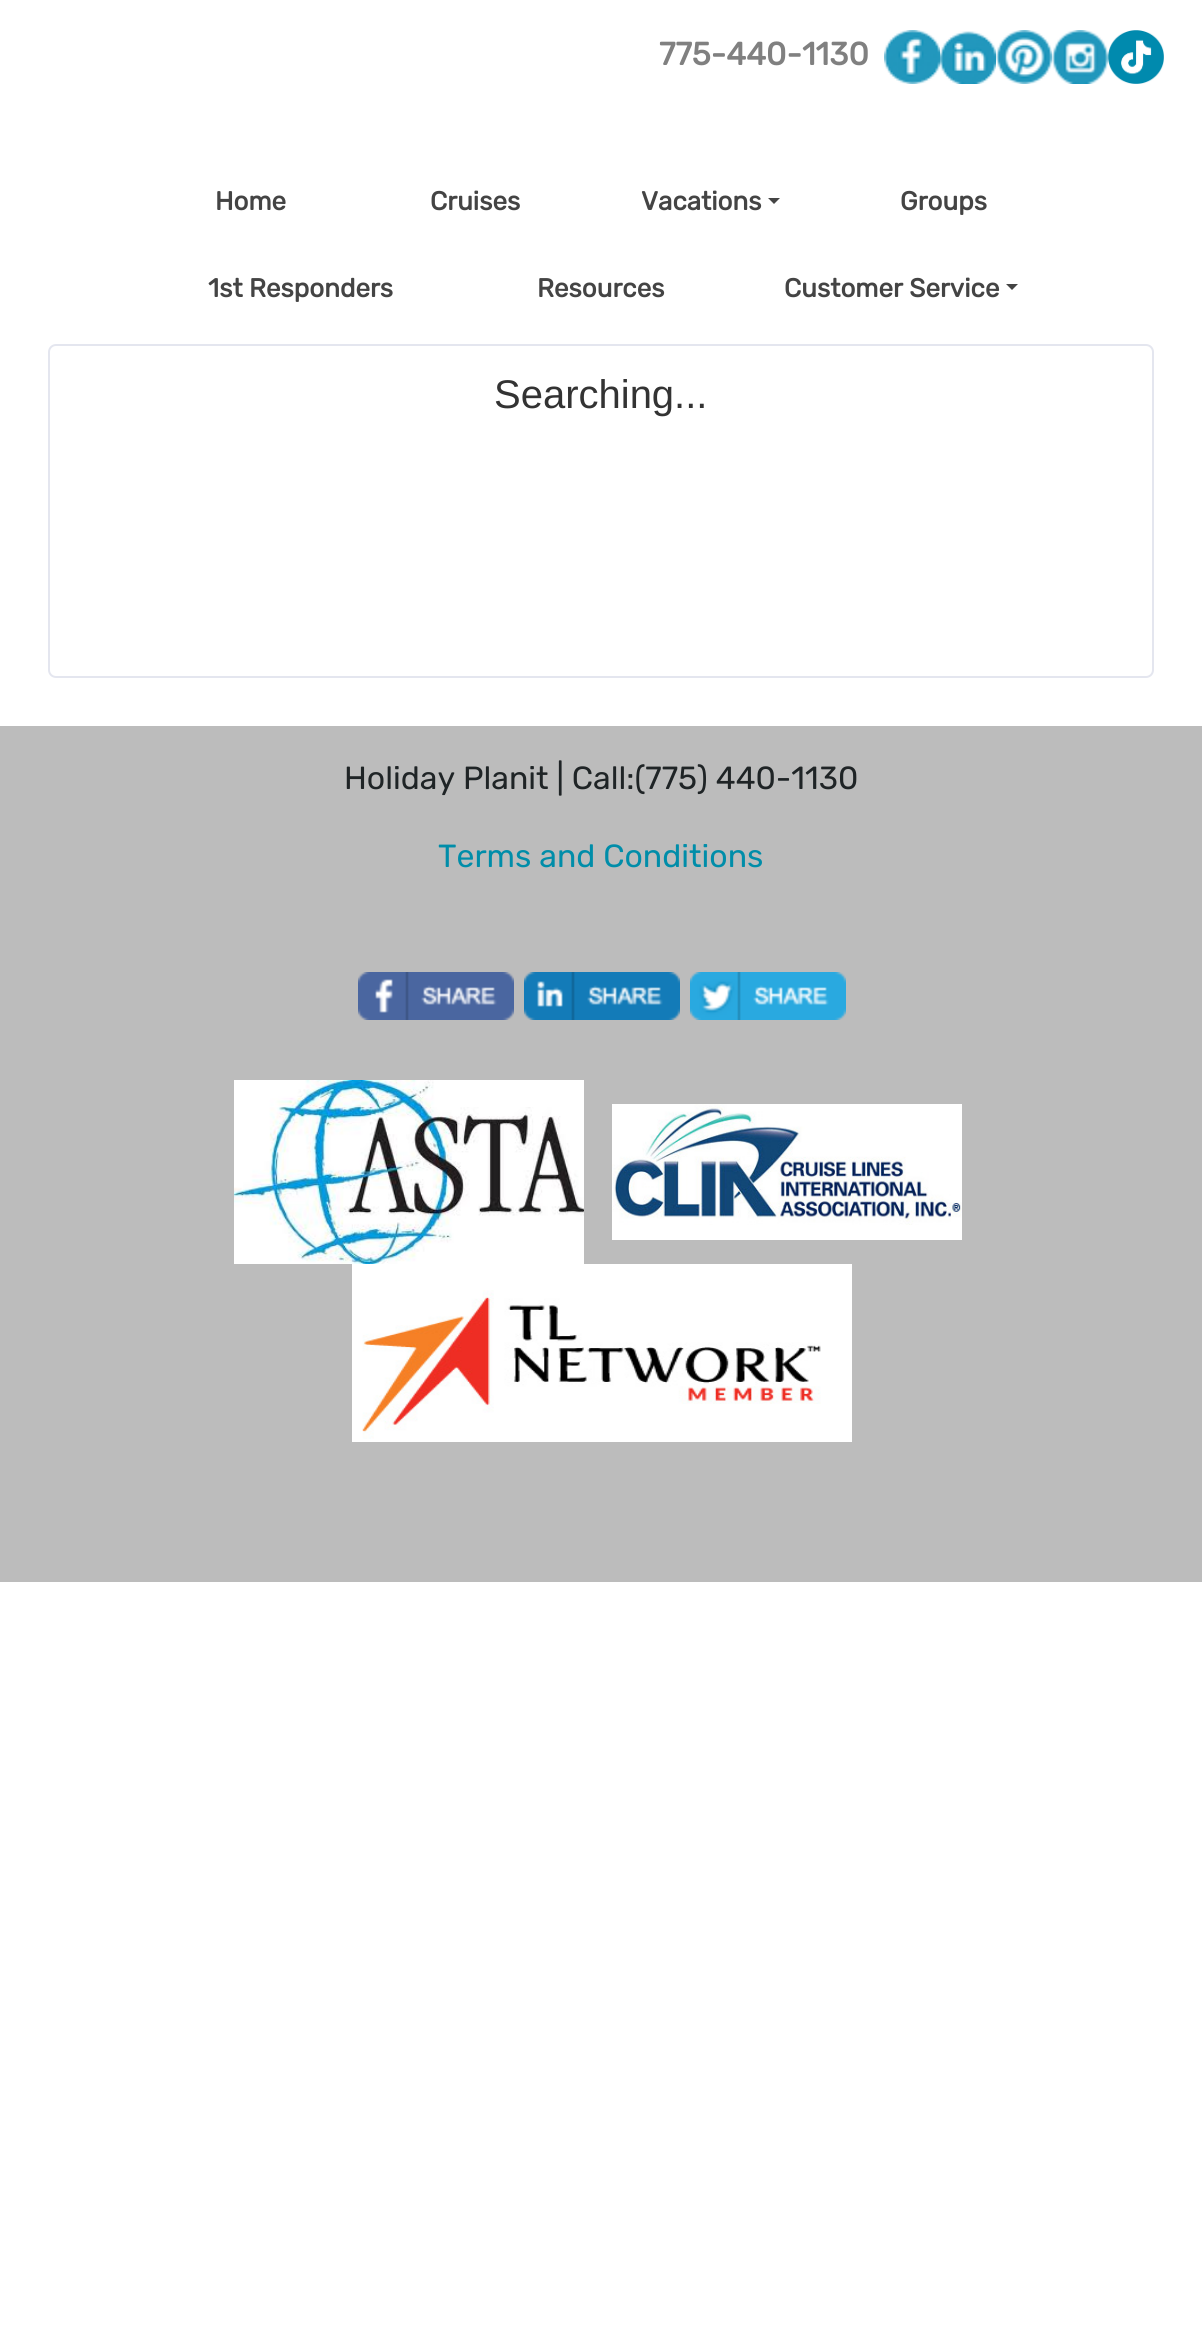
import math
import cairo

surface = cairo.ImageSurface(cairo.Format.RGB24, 1202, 2335)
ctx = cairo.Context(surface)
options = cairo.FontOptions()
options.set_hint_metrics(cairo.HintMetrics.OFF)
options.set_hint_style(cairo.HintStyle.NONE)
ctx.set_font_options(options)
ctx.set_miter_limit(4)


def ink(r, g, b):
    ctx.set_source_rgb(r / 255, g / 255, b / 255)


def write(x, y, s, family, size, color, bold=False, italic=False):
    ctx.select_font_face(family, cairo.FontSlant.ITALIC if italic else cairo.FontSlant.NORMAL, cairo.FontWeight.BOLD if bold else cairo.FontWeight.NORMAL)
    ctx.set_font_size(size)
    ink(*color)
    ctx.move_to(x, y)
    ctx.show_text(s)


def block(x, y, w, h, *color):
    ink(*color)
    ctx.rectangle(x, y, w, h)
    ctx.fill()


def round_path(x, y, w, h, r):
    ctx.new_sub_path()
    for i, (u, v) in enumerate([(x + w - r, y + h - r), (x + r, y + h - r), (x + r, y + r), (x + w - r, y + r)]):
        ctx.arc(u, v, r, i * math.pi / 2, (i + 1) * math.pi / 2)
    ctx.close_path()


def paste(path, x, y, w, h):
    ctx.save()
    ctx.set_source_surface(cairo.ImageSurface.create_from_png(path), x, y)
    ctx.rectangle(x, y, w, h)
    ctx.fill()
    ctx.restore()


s1 = dict(family="Rubik", size=32, color=(128, 128, 128), bold=True)
s2 = dict(family="Rubik", size=26, color=(68, 68, 68), bold=True)
s3 = dict(family="Liberation Sans", size=40, color=(51, 51, 51))
s4 = dict(family="Rubik Light", size=32, color=(31, 36, 38))
s5 = dict(family="Rubik Light", size=32, color=(0, 141, 169))

ink(255, 255, 255)
ctx.paint()
write(659, 65, "775-440-1130", **s1)
paste("pic1.png", 884, 30, 56, 54)
paste("pic2.png", 940, 31, 56, 53)
paste("pic3.png", 996, 30, 56, 54)
paste("pic4.png", 1052, 30, 56, 54)
paste("pic5.png", 1108, 30, 56, 54)
write(215, 210, "Home", **s2)
write(430, 210, "Cruises", **s2)
write(641, 210, "Vacations", **s2)
ctx.new_path()
ctx.move_to(768, 198)
ctx.line_to(780, 198)
ctx.line_to(774, 204)
ctx.close_path()
ctx.fill()
write(900, 210, "Groups", **s2)
write(208, 297, "1st Responders", **s2)
write(537, 297, "Resources", **s2)
write(784, 297, "Customer Service", **s2)
ctx.new_path()
ctx.move_to(1006, 284)
ctx.line_to(1018, 284)
ctx.line_to(1012, 290)
ctx.close_path()
ctx.fill()
round_path(49, 345, 1104, 332, 7)
ink(228, 230, 239)
ctx.stroke()
write(494, 408, "Searching...", **s3)
block(0, 726, 1202, 856, 188, 188, 188)
write(344, 789, "Holiday Planit | Call:(775) 440-1130", **s4)
write(438, 867, "Terms and Conditions", **s5)
paste("pic6.png", 358, 972, 156, 48)
paste("pic7.png", 524, 972, 156, 48)
paste("pic8.png", 690, 972, 156, 48)
paste("pic9.png", 234, 1080, 350, 184)
paste("pic10.png", 612, 1104, 350, 136)
paste("pic11.png", 352, 1264, 500, 178)
surface.write_to_png("screenshot.png")
